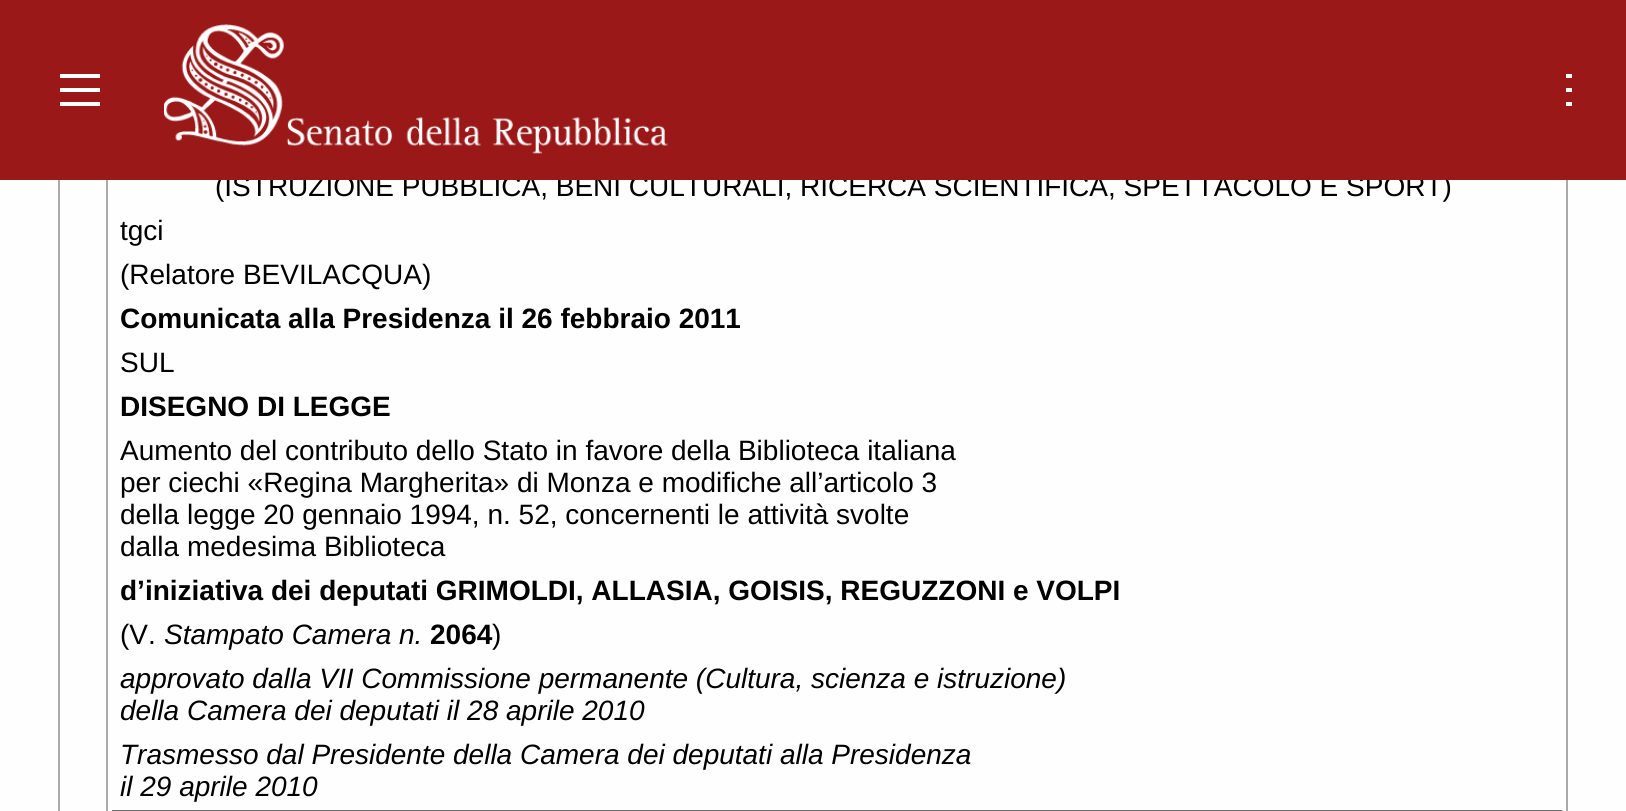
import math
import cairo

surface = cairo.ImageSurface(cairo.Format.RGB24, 1626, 811)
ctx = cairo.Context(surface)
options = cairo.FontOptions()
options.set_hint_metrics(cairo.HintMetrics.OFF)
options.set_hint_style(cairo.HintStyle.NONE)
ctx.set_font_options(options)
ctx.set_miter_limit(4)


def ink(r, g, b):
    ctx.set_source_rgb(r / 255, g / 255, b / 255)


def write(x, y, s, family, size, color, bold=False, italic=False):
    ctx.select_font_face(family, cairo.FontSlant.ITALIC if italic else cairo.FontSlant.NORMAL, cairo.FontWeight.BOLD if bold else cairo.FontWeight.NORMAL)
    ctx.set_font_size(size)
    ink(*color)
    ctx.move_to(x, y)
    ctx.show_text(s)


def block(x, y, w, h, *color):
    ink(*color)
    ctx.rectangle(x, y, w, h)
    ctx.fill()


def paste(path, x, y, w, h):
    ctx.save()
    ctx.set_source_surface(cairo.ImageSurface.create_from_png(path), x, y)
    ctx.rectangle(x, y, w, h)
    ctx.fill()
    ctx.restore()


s1 = dict(family="Liberation Sans", size=28, color=(0, 0, 0))
s2 = dict(family="Liberation Sans", size=28, color=(0, 0, 0), bold=True)
s3 = dict(family="Liberation Sans", size=28, color=(0, 0, 0), italic=True)

ink(254, 254, 254)
ctx.paint()
write(215, 196, "(ISTRUZIONE PUBBLICA, BENI CULTURALI, RICERCA SCIENTIFICA, SPETTACOLO E SPORT)", **s1)
block(0, 0, 1626, 180, 155, 24, 24)
block(60, 102, 40, 4, 254, 254, 254)
block(60, 88, 40, 4, 254, 254, 254)
block(60, 74, 40, 4, 254, 254, 254)
paste("pic1.png", 164, 24, 504, 130)
block(1566, 102, 6, 4, 254, 254, 254)
block(1566, 88, 6, 4, 254, 254, 254)
block(1566, 74, 6, 4, 254, 254, 254)
block(58, 180, 2, 631, 170, 170, 170)
block(1566, 180, 2, 631, 170, 170, 170)
block(106, 180, 2, 631, 170, 170, 170)
write(120, 240, "tgci", **s1)
write(120, 284, "(Relatore BEVILACQUA)", **s1)
write(120, 328, "Comunicata alla Presidenza il 26 febbraio 2011", **s2)
write(120, 372, "SUL", **s1)
write(120, 416, "DISEGNO DI LEGGE", **s2)
write(120, 460, "Aumento del contributo dello Stato in favore della Biblioteca italiana", **s1)
write(120, 492, "per ciechi «Regina Margherita» di Monza e modifiche all’articolo 3", **s1)
write(120, 524, "della legge 20 gennaio 1994, n. 52, concernenti le attività svolte", **s1)
write(120, 556, "dalla medesima Biblioteca", **s1)
write(120, 600, "d’iniziativa dei deputati GRIMOLDI, ALLASIA, GOISIS, REGUZZONI e VOLPI", **s2)
write(120, 644, "(V.", **s1)
write(164, 644, "Stampato Camera n.", **s3)
write(430, 644, "2064", **s2)
write(492, 644, ")", **s1)
write(120, 688, "approvato dalla VII Commissione permanente (Cultura, scienza e istruzione)", **s3)
write(120, 720, "della Camera dei deputati il 28 aprile 2010", **s3)
write(120, 764, "Trasmesso dal Presidente della Camera dei deputati alla Presidenza", **s3)
write(120, 796, "il 29 aprile 2010", **s3)
block(112, 810, 1450, 1, 110, 110, 110)
surface.write_to_png("screenshot.png")
